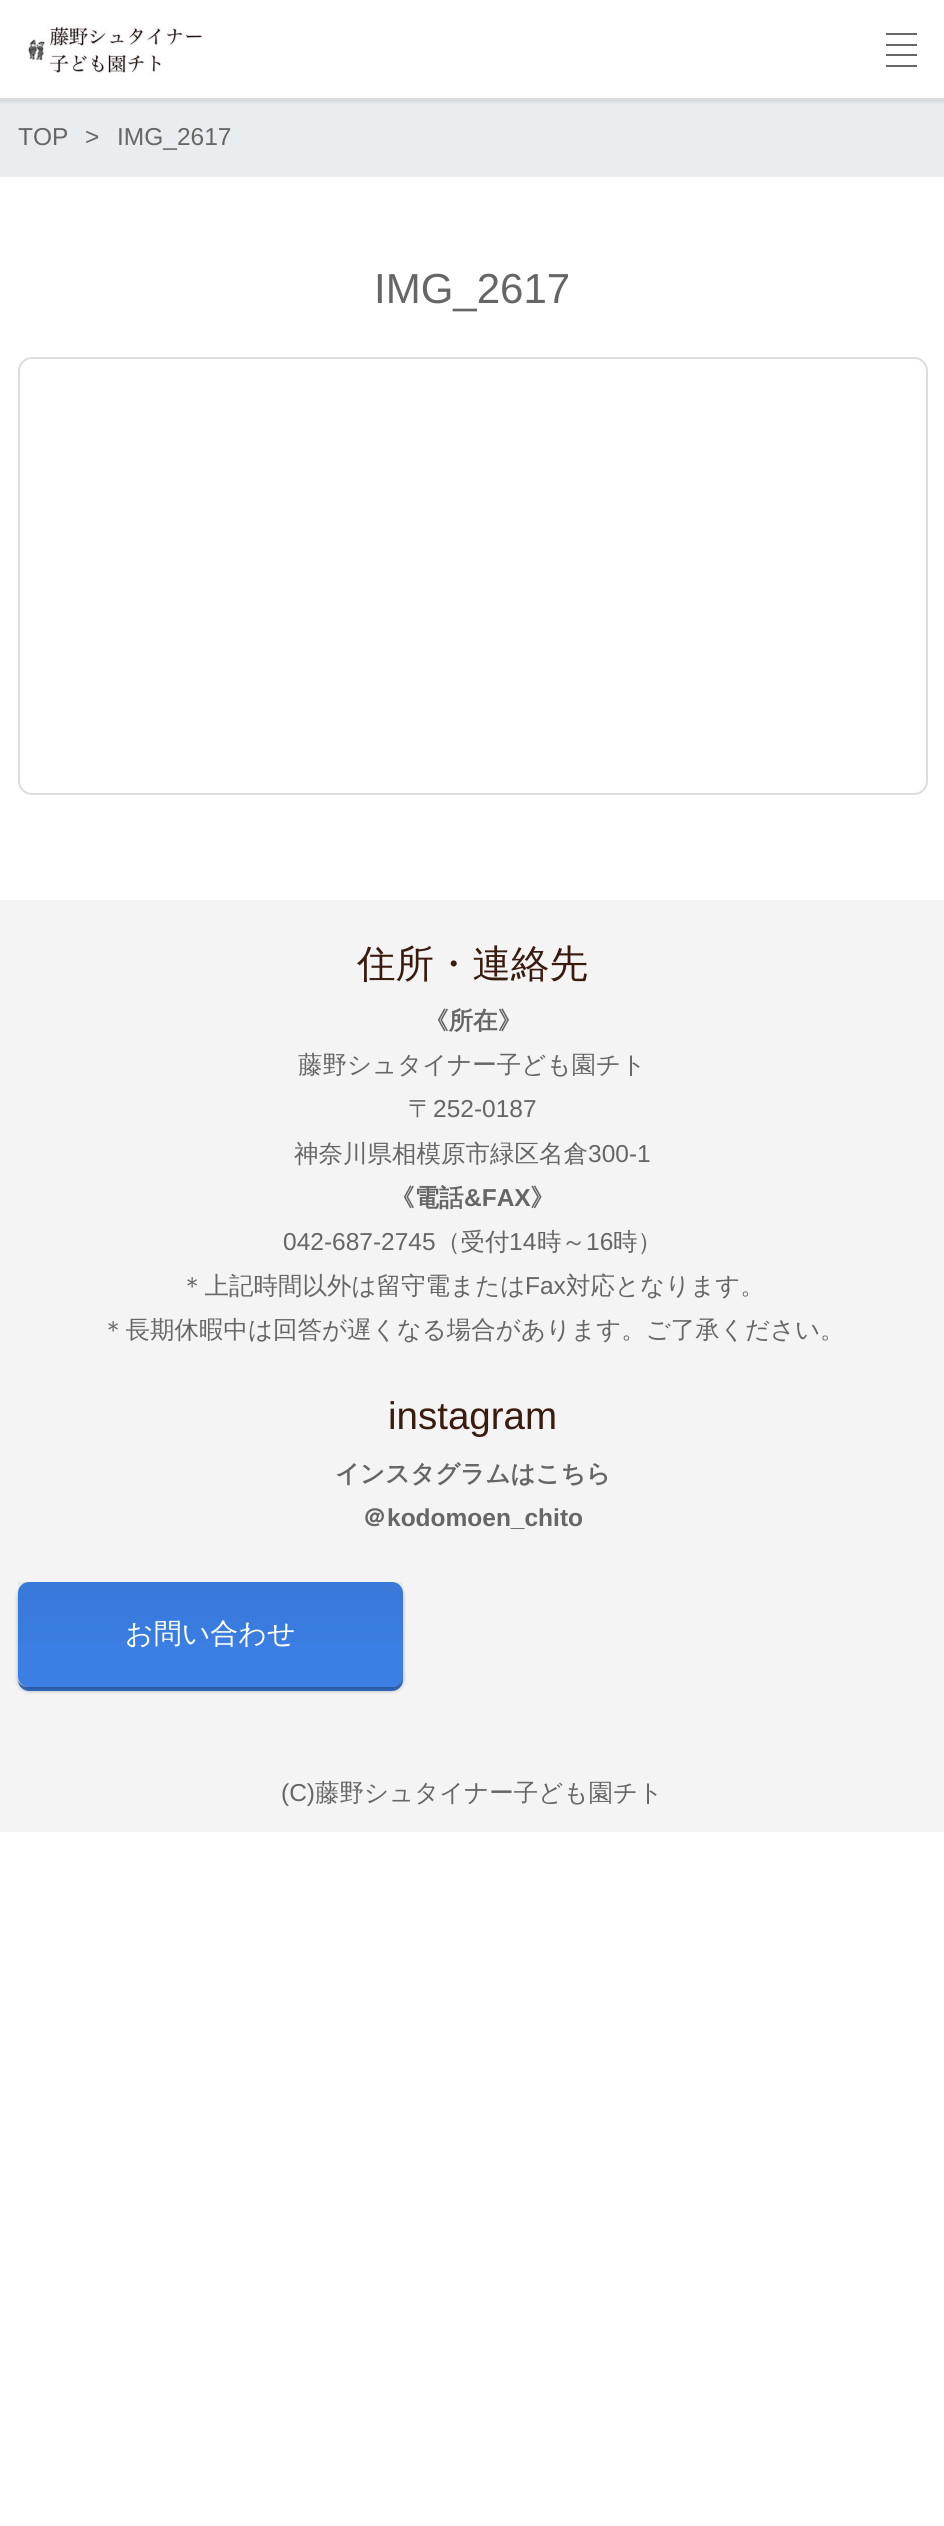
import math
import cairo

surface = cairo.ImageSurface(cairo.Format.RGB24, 944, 2526)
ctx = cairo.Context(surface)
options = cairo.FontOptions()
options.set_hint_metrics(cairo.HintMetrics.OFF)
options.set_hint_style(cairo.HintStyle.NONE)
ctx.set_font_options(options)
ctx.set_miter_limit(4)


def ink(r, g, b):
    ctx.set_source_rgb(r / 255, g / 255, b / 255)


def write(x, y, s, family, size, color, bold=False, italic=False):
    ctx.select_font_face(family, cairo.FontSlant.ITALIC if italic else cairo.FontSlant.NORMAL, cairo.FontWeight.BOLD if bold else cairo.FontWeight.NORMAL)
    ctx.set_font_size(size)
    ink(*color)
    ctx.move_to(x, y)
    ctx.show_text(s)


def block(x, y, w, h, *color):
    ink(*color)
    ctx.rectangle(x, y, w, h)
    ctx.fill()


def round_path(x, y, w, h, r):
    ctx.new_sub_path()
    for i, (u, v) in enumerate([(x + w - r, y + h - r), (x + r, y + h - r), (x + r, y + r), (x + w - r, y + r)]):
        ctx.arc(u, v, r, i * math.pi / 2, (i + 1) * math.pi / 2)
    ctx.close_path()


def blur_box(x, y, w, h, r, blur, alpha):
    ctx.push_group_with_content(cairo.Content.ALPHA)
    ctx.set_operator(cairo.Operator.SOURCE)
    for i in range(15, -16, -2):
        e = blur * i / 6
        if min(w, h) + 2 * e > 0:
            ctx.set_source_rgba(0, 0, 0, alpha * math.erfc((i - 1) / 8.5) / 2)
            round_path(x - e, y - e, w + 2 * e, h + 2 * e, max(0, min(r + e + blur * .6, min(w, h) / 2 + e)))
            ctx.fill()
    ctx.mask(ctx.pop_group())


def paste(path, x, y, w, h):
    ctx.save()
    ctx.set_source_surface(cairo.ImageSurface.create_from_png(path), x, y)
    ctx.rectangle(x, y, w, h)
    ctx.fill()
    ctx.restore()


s1 = dict(family="Liberation Sans", size=24.5, color=(102, 102, 102))
s2 = dict(family="Liberation Sans", size=42, color=(102, 102, 102))
s3 = dict(family="WenQuanYi Zen Hei Medium", size=38.5, color=(58, 27, 13))
s4 = dict(family="WenQuanYi Zen Hei", size=24.5, color=(102, 102, 102), bold=True)
s5 = dict(family="WenQuanYi Zen Hei Medium", size=24.5, color=(102, 102, 102))
s6 = dict(family="Liberation Sans", size=24.5, color=(102, 102, 102), bold=True)
s7 = dict(family="Liberation Sans", size=38.5, color=(58, 27, 13))
s8 = dict(family="WenQuanYi Zen Hei Medium", size=28, color=(255, 255, 255))

ink(255, 255, 255)
ctx.paint()
block(0, 100, 944, 77, 233, 237, 239)
ink(0, 0, 0)
blur_box(0, 0, 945, 100, 0, 2.5, 0.2)
block(0, 0, 944, 98, 255, 255, 255)
block(0, 98, 944, 2, 221, 221, 221)
paste("pic1.png", 28, 24, 175, 52)
block(886, 44, 31, 2, 102, 102, 102)
block(886, 54, 31, 2, 102, 102, 102)
block(886, 33, 31, 2, 102, 102, 102)
block(886, 65, 31, 2, 102, 102, 102)
write(18, 145, "TOP", **s1)
write(85, 145, ">", **s1)
write(117, 145, "IMG_2617", **s1)
write(374, 303, "IMG_2617", **s2)
round_path(19, 358, 908, 436, 13)
ink(221, 221, 221)
ctx.stroke()
block(0, 900, 944, 932, 244, 244, 244)
write(357, 977, "住所・連絡先", **s3)
write(424, 1029, "《所在》", **s4)
write(298, 1073, "藤野シュタイナー子ども園チト", **s5)
write(408, 1117, "〒", **s5)
write(433, 1117, "252-0187", **s1)
write(294, 1162, "神奈川県相模原市緑区名倉", **s5)
write(588, 1162, "300-1", **s1)
write(390, 1206, "《電話", **s4)
write(464, 1206, "&FAX", **s6)
write(530, 1206, "》", **s4)
write(283, 1250, "042-687-2745", **s1)
write(436, 1250, "（受付", **s5)
write(509, 1250, "14", **s1)
write(537, 1250, "時～", **s5)
write(586, 1250, "16", **s1)
write(613, 1250, "時）", **s5)
write(180, 1294, "＊上記時間以外は留守電または", **s5)
write(525, 1294, "Fax", **s1)
write(566, 1294, "対応となります。", **s5)
write(101, 1338, "＊長期休暇中は回答が遅くなる場合があります。ご了承ください。", **s5)
write(388, 1429, "instagram", **s7)
write(335, 1482, "インスタグラムはこちら", **s4)
write(362, 1526, "＠", **s4)
write(387, 1526, "kodomoen_chito", **s6)
ink(59, 127, 229)
ctx.new_path()
ctx.move_to(18, 1680)
ctx.curve_to(18, 1686, 23, 1691, 29, 1691)
ctx.line_to(392, 1691)
ctx.curve_to(398, 1691, 403, 1686, 403, 1680)
ctx.line_to(403, 1597)
ctx.line_to(402, 1594)
ctx.line_to(402, 1676)
ctx.curve_to(402, 1682, 398, 1687, 392, 1687)
ctx.line_to(28, 1687)
ctx.curve_to(23, 1687, 19, 1684, 18, 1680)
ctx.close_path()
ctx.fill()
ink(0, 0, 0)
blur_box(18, 1586, 385, 105, 11, 2, 0.3)
ink(59, 127, 229)
round_path(18, 1582, 385, 105, 11)
ctx.fill()
gradient = cairo.LinearGradient(210, 1582, 210, 1687)
gradient.add_color_stop_rgba(0, 0, 0, 0, 0.05)
gradient.add_color_stop_rgba(1, 0, 0, 0, 0)
ctx.set_source(gradient)
ctx.rectangle(18, 1582, 385, 60)
ctx.fill()
write(125, 1643, "お問い合わせ", **s8)
write(281, 1801, "(C)", **s1)
write(315, 1801, "藤野シュタイナー子ども園チト", **s5)
surface.write_to_png("screenshot.png")
